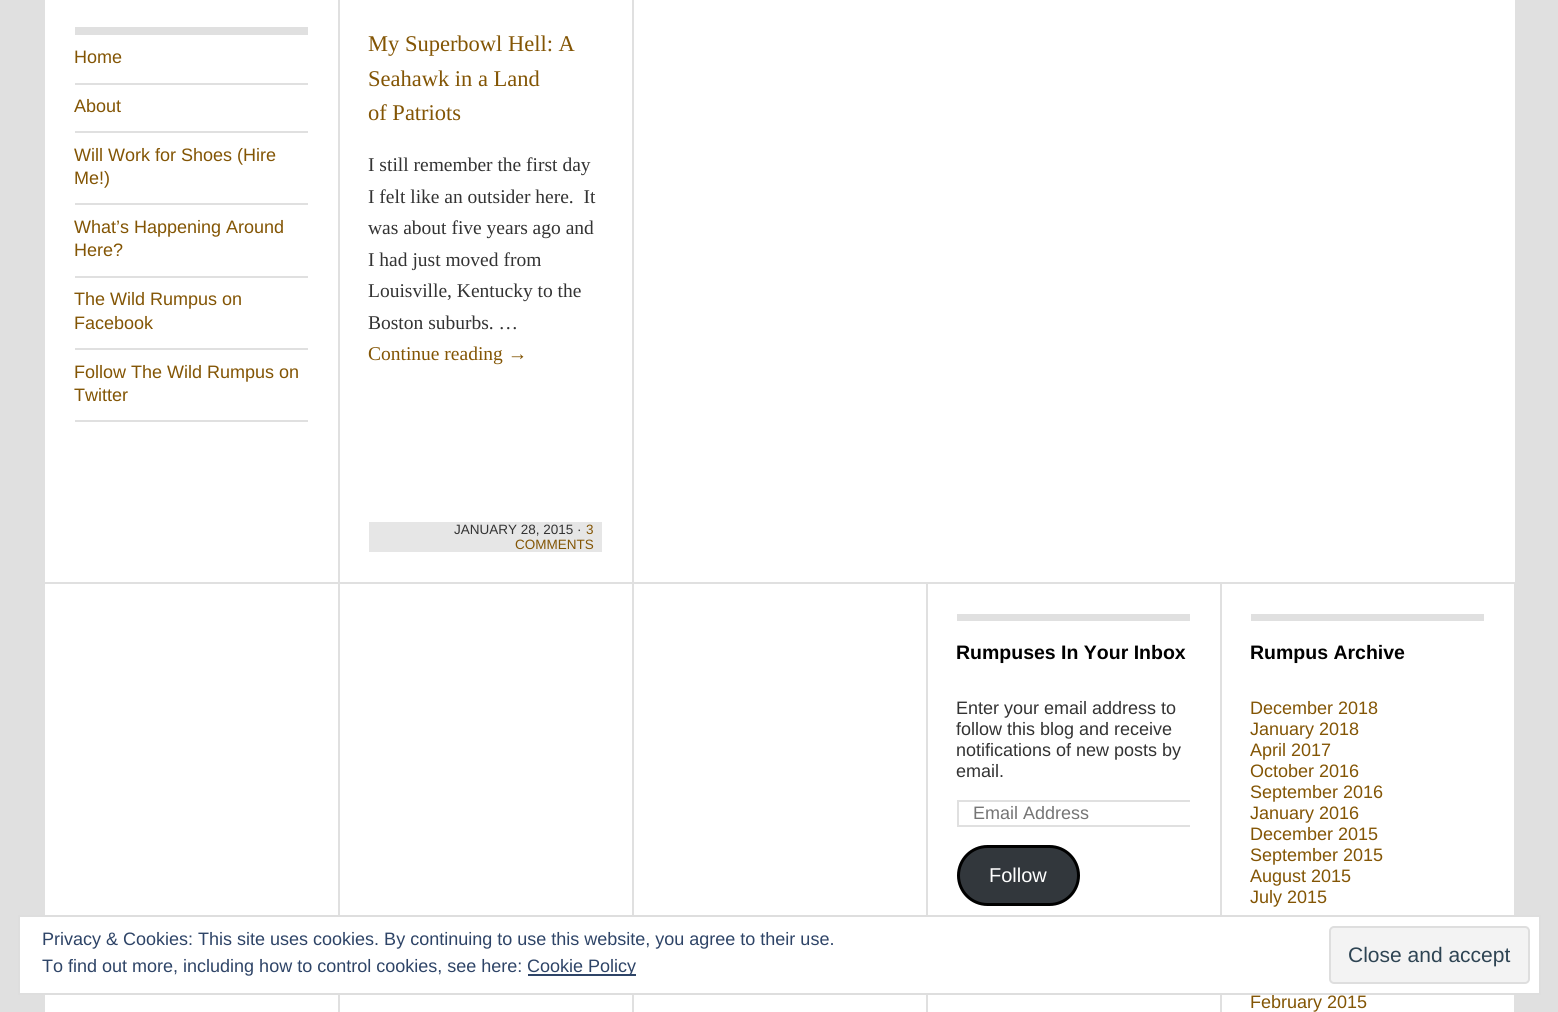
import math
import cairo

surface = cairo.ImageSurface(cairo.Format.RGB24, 1558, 1012)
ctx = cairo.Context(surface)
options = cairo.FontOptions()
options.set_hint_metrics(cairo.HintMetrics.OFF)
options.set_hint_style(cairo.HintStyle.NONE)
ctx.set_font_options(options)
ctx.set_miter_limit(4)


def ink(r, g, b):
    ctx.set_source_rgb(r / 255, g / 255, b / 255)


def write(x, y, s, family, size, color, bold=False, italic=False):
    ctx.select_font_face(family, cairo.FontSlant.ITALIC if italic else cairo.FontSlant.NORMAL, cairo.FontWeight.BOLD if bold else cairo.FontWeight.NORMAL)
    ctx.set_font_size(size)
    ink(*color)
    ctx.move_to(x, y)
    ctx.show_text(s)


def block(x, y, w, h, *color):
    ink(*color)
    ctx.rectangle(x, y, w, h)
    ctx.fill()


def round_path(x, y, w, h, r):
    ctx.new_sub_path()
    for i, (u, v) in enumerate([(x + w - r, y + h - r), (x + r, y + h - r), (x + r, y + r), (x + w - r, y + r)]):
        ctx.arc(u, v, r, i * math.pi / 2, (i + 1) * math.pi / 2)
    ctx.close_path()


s1 = dict(family="Liberation Sans", size=18, color=(131, 85, 4))
s2 = dict(family="Liberation Serif", size=22.5, color=(131, 85, 4))
s3 = dict(family="Liberation Serif", size=19.5, color=(51, 51, 51))
s4 = dict(family="Liberation Serif", size=19.5, color=(131, 85, 4))
s5 = dict(family="Liberation Sans", size=13.5, color=(51, 51, 51))
s6 = dict(family="Liberation Sans", size=13.5, color=(131, 85, 4))
s7 = dict(family="Liberation Sans", size=19.5, color=(0, 0, 0), bold=True)
s8 = dict(family="Liberation Sans", size=18, color=(51, 51, 51))
s9 = dict(family="Liberation Sans", size=18, color=(117, 117, 117))
s10 = dict(family="Liberation Sans", size=20, color=(255, 255, 255))
s11 = dict(family="Liberation Sans", size=18, color=(46, 68, 103))
s12 = dict(family="Liberation Sans", size=21, color=(46, 68, 83))

ink(224, 224, 224)
ctx.paint()
block(45, 0, 1470, 1012, 255, 255, 255)
block(338, 0, 2, 582, 224, 224, 224)
block(75, 27, 233, 8, 224, 224, 224)
block(75, 83, 233, 2, 224, 224, 224)
write(74, 63, "Home", **s1)
block(75, 131, 233, 2, 224, 224, 224)
write(74, 112, "About", **s1)
block(75, 203, 233, 2, 224, 224, 224)
write(74, 161, "Will Work for Shoes (Hire", **s1)
write(74, 184, "Me!)", **s1)
block(75, 276, 233, 2, 224, 224, 224)
write(74, 233, "What’s Happening Around", **s1)
write(74, 256, "Here?", **s1)
block(75, 348, 233, 2, 224, 224, 224)
write(74, 305, "The Wild Rumpus on", **s1)
write(74, 329, "Facebook", **s1)
block(75, 420, 233, 2, 224, 224, 224)
write(74, 378, "Follow The Wild Rumpus on", **s1)
write(74, 401, "Twitter", **s1)
block(632, 0, 2, 582, 224, 224, 224)
write(368, 51, "My Superbowl Hell: A", **s2)
write(368, 86, "Seahawk in a Land", **s2)
write(368, 120, "of Patriots", **s2)
write(368, 171, "I still remember the first day", **s3)
write(368, 203, "I felt like an outsider here.  It", **s3)
write(368, 234, "was about five years ago and", **s3)
write(368, 266, "I had just moved from", **s3)
write(368, 297, "Louisville, Kentucky to the", **s3)
write(368, 329, "Boston suburbs. …", **s3)
write(368, 360, "Continue reading →", **s4)
block(369, 522, 233, 30, 230, 230, 230)
write(454, 534, "JANUARY 28, 2015 ·", **s5)
write(586, 534, "3", **s6)
write(515, 549, "COMMENTS", **s6)
block(45, 582, 1470, 2, 224, 224, 224)
block(338, 584, 2, 428, 224, 224, 224)
block(632, 584, 2, 428, 224, 224, 224)
block(926, 584, 2, 428, 224, 224, 224)
block(1220, 584, 2, 428, 224, 224, 224)
block(957, 614, 233, 7, 224, 224, 224)
write(956, 659, "Rumpuses In Your Inbox", **s7)
write(956, 714, "Enter your email address to", **s8)
write(956, 735, "follow this blog and receive", **s8)
write(956, 756, "notifications of new posts by", **s8)
write(956, 777, "email.", **s8)
ctx.save()
ctx.rectangle(957, 614, 233, 331)
ctx.clip()
ctx.rectangle(958, 801, 252, 25)
ink(224, 224, 224)
ctx.stroke()
ctx.restore()
write(973, 819, "Email Address", **s9)
ink(50, 55, 60)
round_path(958.5, 846.5, 120, 58, 29)
ctx.fill_preserve()
ink(0, 0, 0)
ctx.set_line_width(3)
ctx.stroke()
write(989, 882, "Follow", **s10)
block(1514, 584, 1, 428, 224, 224, 224)
block(1251, 614, 233, 7, 224, 224, 224)
write(1250, 659, "Rumpus Archive", **s7)
write(1250, 714, "December 2018", **s1)
write(1250, 735, "January 2018", **s1)
write(1250, 756, "April 2017", **s1)
write(1250, 777, "October 2016", **s1)
write(1250, 798, "September 2016", **s1)
write(1250, 819, "January 2016", **s1)
write(1250, 840, "December 2015", **s1)
write(1250, 861, "September 2015", **s1)
write(1250, 882, "August 2015", **s1)
write(1250, 903, "July 2015", **s1)
write(1250, 1008, "February 2015", **s1)
ink(255, 255, 255)
ctx.rectangle(19, 916, 1521, 78)
ctx.fill_preserve()
ink(222, 222, 222)
ctx.set_line_width(2)
ctx.stroke()
write(42, 945, "Privacy & Cookies: This site uses cookies. By continuing to use this website, you agree to their use.", **s11)
write(42, 972, "To find out more, including how to control cookies, see here:", **s11)
block(528, 974, 108, 2, 46, 68, 103)
write(527, 972, "Cookie Policy", **s11)
ink(243, 243, 243)
round_path(1330, 927, 199, 56, 4)
ctx.fill_preserve()
ink(222, 222, 222)
ctx.stroke()
write(1348, 962, "Close and accept", **s12)
surface.write_to_png("screenshot.png")
